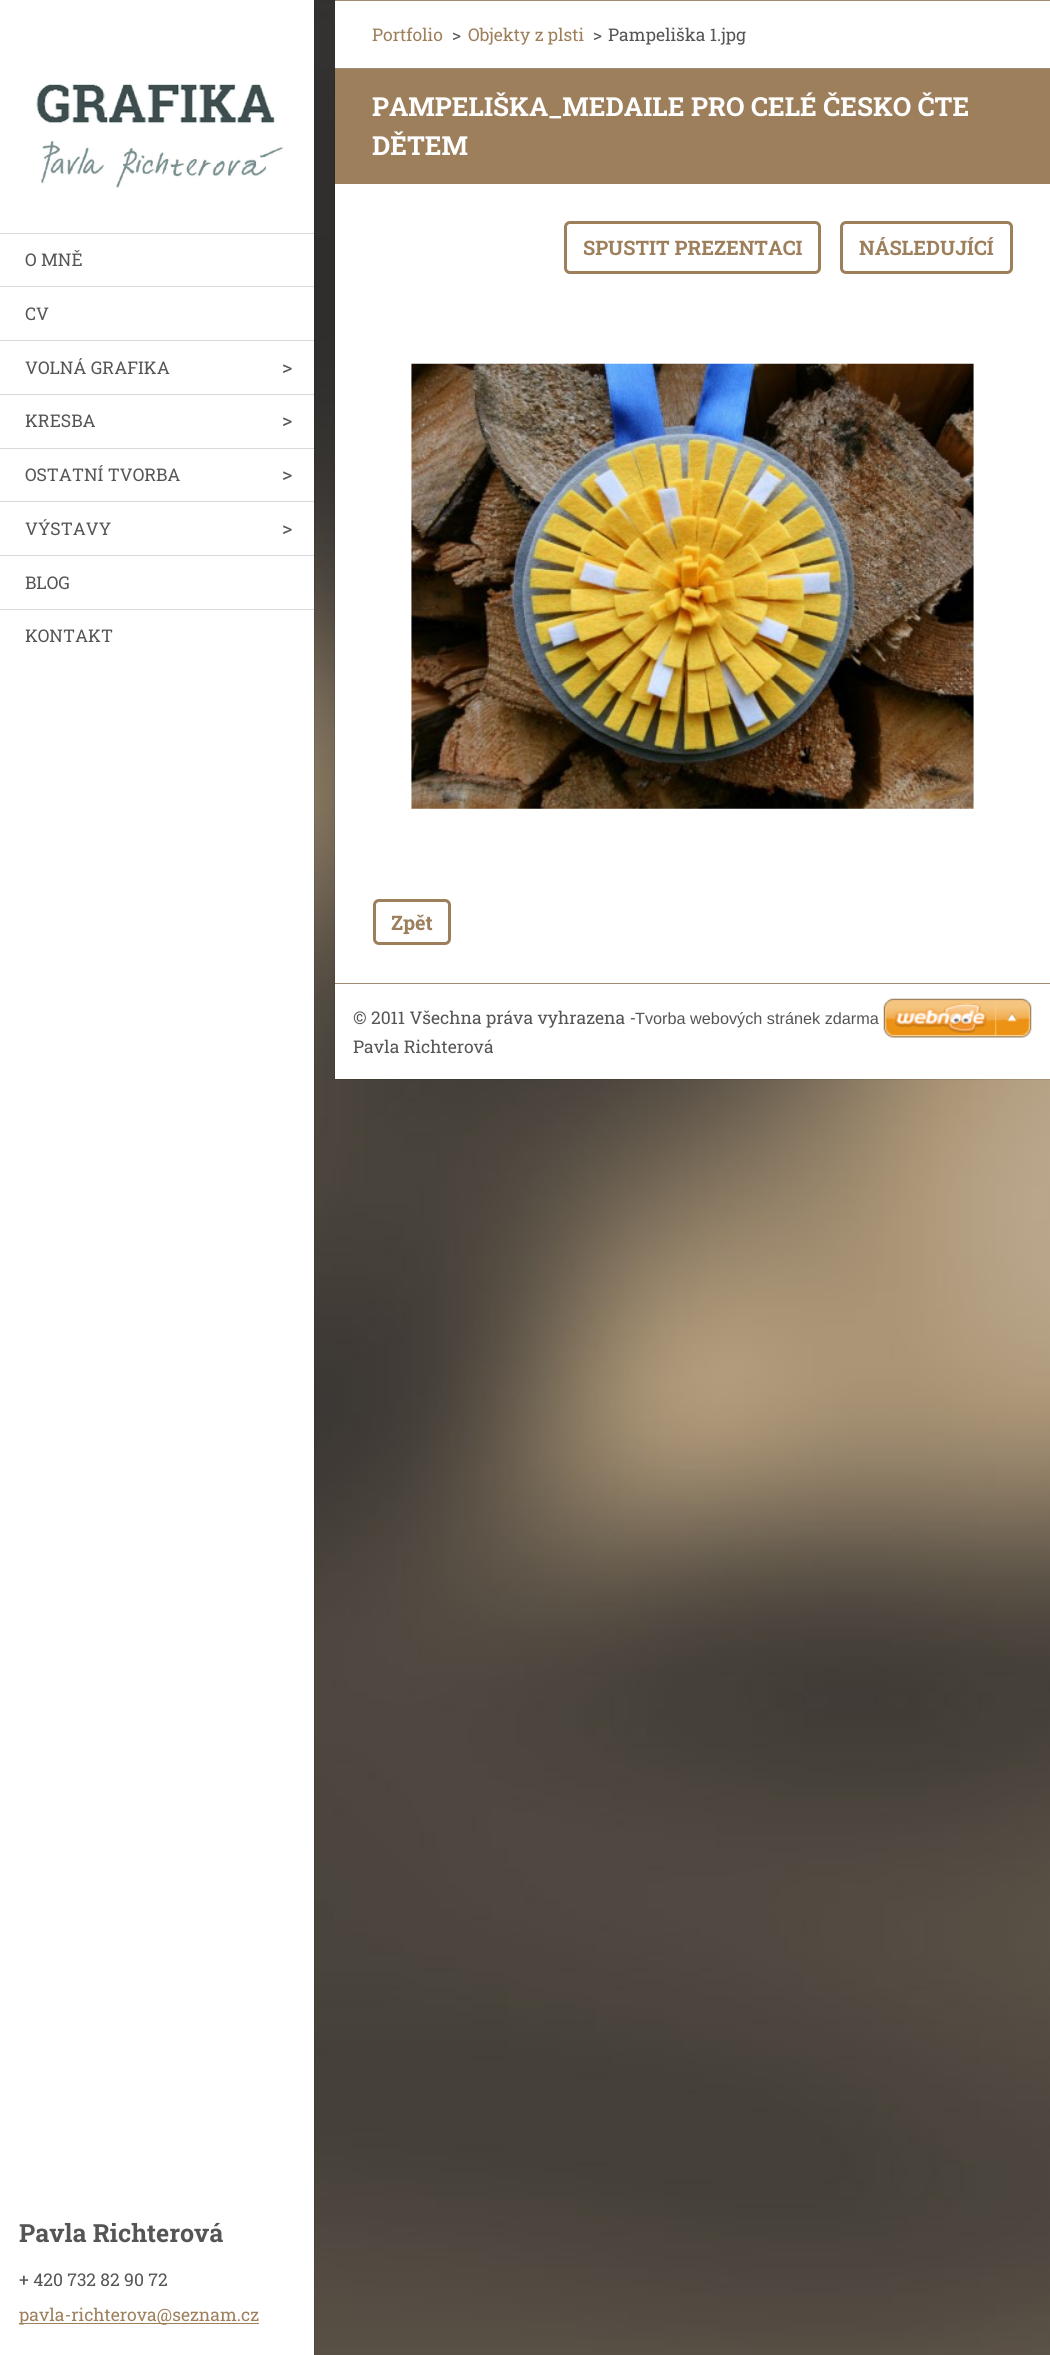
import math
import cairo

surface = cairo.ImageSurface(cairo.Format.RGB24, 1050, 2355)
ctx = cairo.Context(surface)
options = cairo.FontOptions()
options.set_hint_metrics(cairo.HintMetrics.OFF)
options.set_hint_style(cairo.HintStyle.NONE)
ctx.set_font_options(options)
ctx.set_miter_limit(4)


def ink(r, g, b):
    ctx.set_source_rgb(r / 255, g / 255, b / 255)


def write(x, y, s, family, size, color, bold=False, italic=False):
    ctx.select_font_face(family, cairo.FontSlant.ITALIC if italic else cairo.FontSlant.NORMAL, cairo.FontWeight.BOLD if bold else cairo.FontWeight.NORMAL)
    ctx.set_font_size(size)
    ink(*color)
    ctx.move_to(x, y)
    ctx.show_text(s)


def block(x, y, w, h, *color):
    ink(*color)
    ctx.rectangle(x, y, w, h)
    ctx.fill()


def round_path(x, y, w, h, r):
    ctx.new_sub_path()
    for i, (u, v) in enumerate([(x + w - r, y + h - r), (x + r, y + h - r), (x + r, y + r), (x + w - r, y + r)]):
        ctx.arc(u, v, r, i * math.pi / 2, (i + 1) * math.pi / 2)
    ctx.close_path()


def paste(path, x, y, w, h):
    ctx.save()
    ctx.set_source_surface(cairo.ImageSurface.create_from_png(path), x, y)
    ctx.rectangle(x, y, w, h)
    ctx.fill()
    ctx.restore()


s1 = dict(family="Roboto Slab", size=17.5, color=(85, 85, 85))
s2 = dict(family="Roboto Slab", size=20, color=(85, 85, 85))
s3 = dict(family="Roboto Slab", size=25, color=(85, 85, 85), bold=True)
s4 = dict(family="Roboto Slab", size=17.5, color=(157, 127, 92))
s5 = dict(family="Roboto Slab", size=26.25, color=(255, 255, 255), bold=True)
s6 = dict(family="Roboto Slab", size=20, color=(157, 127, 92), bold=True)
s7 = dict(family="Liberation Sans", size=16.25, color=(85, 85, 85))

ink(255, 255, 255)
ctx.paint()
paste("pic1.png", 314, 0, 736, 2355)
ctx.rectangle(-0.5, -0.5, 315, 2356)
ctx.set_source_rgba(0, 0, 0, 0.1)
ctx.set_line_width(1)
ctx.stroke()
paste("pic2.png", 36, 84, 247, 104)
block(0, 233, 314, 1, 217, 217, 217)
write(25, 266, "O MNĚ", **s1)
block(0, 286, 314, 1, 217, 217, 217)
write(25, 320, "CV", **s1)
block(0, 340, 314, 1, 217, 217, 217)
write(25, 374, "VOLNÁ GRAFIKA", **s1)
write(282, 374, ">", **s2)
block(0, 394, 314, 1, 217, 217, 217)
write(25, 427, "KRESBA", **s1)
write(282, 427, ">", **s2)
block(0, 448, 314, 1, 217, 217, 217)
write(25, 481, "OSTATNÍ TVORBA", **s1)
write(282, 481, ">", **s2)
block(0, 501, 314, 1, 217, 217, 217)
write(25, 535, "VÝSTAVY", **s1)
write(282, 535, ">", **s2)
block(0, 555, 314, 1, 217, 217, 217)
write(25, 589, "BLOG", **s1)
block(0, 609, 314, 1, 217, 217, 217)
write(25, 642, "KONTAKT", **s1)
write(19, 2242, "Pavla Richterová", **s3)
write(19, 2286, "+ 420 732 82 90 72", **s1)
block(19, 2323, 240, 1, 157, 127, 92)
write(19, 2321, "pavla-richterova@seznam.cz", **s4)
block(335, 1, 715, 67, 255, 255, 255)
block(335, 0, 715, 1, 157, 139, 113)
ctx.rectangle(334.5, -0.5, 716, 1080)
ctx.set_source_rgba(0, 0, 0, 0.1)
ctx.stroke()
write(372, 41, "Portfolio", **s4)
write(452, 41, ">", **s1)
write(468, 41, "Objekty z plsti", **s4)
write(593, 41, ">", **s1)
write(608, 41, "Pampeliška 1.jpg", **s1)
block(335, 68, 715, 1, 157, 139, 113)
block(335, 69, 715, 115, 157, 127, 92)
write(372, 116, "PAMPELIŠKA_MEDAILE PRO CELÉ ČESKO ČTE", **s5)
write(372, 155, "DĚTEM", **s5)
block(335, 184, 715, 799, 255, 255, 255)
round_path(565.5, 222.5, 254, 50, 4.5)
ink(157, 127, 92)
ctx.set_line_width(3)
ctx.stroke()
write(583, 255, "SPUSTIT PREZENTACI", **s6)
round_path(841.5, 222.5, 170, 50, 4.5)
ctx.stroke()
write(859, 255, "NÁSLEDUJÍCÍ", **s6)
paste("pic3.png", 411, 363, 563, 446)
round_path(374.5, 900.5, 75, 43, 4.5)
ctx.stroke()
write(391, 930, "Zpět", **s6)
block(335, 984, 715, 95, 255, 255, 255)
block(335, 983, 715, 1, 157, 139, 113)
write(353, 1024, "© 2011 Všechna práva vyhrazena -", **s1)
write(353, 1053, "Pavla Richterová", **s1)
write(635, 1024, "Tvorba webových stránek zdarma", **s7)
paste("pic4.png", 883, 998, 149, 40)
surface.write_to_png("screenshot.png")
